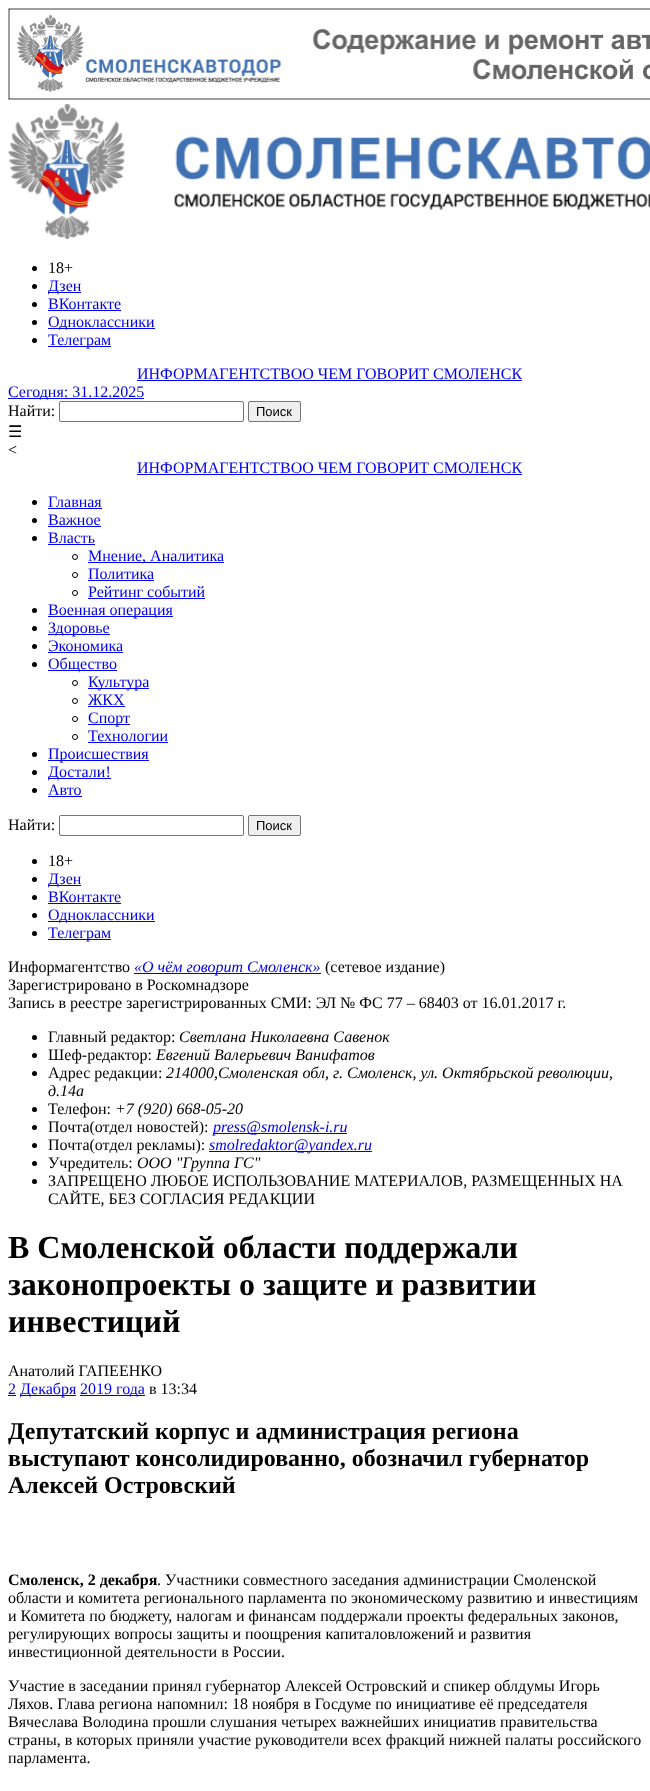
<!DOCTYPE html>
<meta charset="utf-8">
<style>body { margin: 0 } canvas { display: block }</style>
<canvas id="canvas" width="650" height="1791"></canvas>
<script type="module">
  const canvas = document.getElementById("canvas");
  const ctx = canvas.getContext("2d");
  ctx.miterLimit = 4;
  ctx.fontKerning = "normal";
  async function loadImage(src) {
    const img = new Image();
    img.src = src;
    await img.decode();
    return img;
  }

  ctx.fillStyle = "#ffffff";
  ctx.fillRect(0, 0, 650, 1791);
  ctx.drawImage(await loadImage("img1.png"), 8, 8, 642, 92);
  ctx.drawImage(await loadImage("img2.png"), 8, 104, 642, 135);
  ctx.fillStyle = "#000000";
  ctx.beginPath();
  ctx.arc(34.5, 268.5, 2.5, 0, Math.PI * 2);
  ctx.fill();
  ctx.font = "16px Liberation Serif";
  ctx.fillText("18+", 48, 273);
  ctx.beginPath();
  ctx.arc(34.5, 286.5, 2.5, 0, Math.PI * 2);
  ctx.fill();
  ctx.fillStyle = "#0000ee";
  ctx.fillRect(48, 292, 33, 1);
  ctx.fillText("Дзен", 48, 291);
  ctx.fillStyle = "#000000";
  ctx.beginPath();
  ctx.arc(34.5, 304.5, 2.5, 0, Math.PI * 2);
  ctx.fill();
  ctx.fillStyle = "#0000ee";
  ctx.fillText("ВКонтакте", 48, 309);
  ctx.fillRect(48, 310, 73, 1);
  ctx.fillStyle = "#000000";
  ctx.beginPath();
  ctx.arc(34.5, 322.5, 2.5, 0, Math.PI * 2);
  ctx.fill();
  ctx.fillStyle = "#0000ee";
  ctx.fillRect(48, 328, 107, 1);
  ctx.fillText("Одноклассники", 48, 327);
  ctx.fillStyle = "#000000";
  ctx.beginPath();
  ctx.arc(34.5, 340.5, 2.5, 0, Math.PI * 2);
  ctx.fill();
  ctx.fillStyle = "#0000ee";
  ctx.fillRect(48, 346, 63, 1);
  ctx.fillText("Телеграм", 48, 345);
  ctx.fillText("ИНФОРМАГЕНТСТВОО ЧЕМ ГОВОРИТ СМОЛЕНСК", 137, 379);
  ctx.fillRect(137, 380, 385, 1);
  ctx.fillRect(8, 398, 136, 1);
  ctx.fillText("Сегодня: 31.12.2025", 8, 397);
  ctx.fillStyle = "#000000";
  ctx.fillText("Найти:", 8, 416);
  ctx.beginPath();
  ctx.roundRect(59.5, 401.5, 184, 20, 1.5);
  ctx.strokeStyle = "#767676";
  ctx.stroke();
  ctx.fillStyle = "#efefef";
  ctx.beginPath();
  ctx.roundRect(248.5, 401.5, 52, 20, 1.5);
  ctx.fill();
  ctx.stroke();
  ctx.font = "13px Liberation Sans";
  ctx.fillStyle = "#000000";
  ctx.fillText("Поиск", 256, 416);
  ctx.font = "16px DejaVu Sans";
  ctx.fillText("☰", 8, 437);
  ctx.font = "16px Liberation Serif";
  ctx.fillText("<", 8, 455);
  ctx.fillStyle = "#0000ee";
  ctx.fillText("ИНФОРМАГЕНТСТВОО ЧЕМ ГОВОРИТ СМОЛЕНСК", 137, 473);
  ctx.fillRect(137, 474, 385, 1);
  ctx.fillStyle = "#000000";
  ctx.beginPath();
  ctx.arc(34.5, 502.5, 2.5, 0, Math.PI * 2);
  ctx.fill();
  ctx.fillStyle = "#0000ee";
  ctx.fillText("Главная", 48, 507);
  ctx.fillRect(48, 508, 54, 1);
  ctx.fillStyle = "#000000";
  ctx.beginPath();
  ctx.arc(34.5, 520.5, 2.5, 0, Math.PI * 2);
  ctx.fill();
  ctx.fillStyle = "#0000ee";
  ctx.fillText("Важное", 48, 525);
  ctx.fillRect(48, 526, 53, 1);
  ctx.fillStyle = "#000000";
  ctx.beginPath();
  ctx.arc(34.5, 538.5, 2.5, 0, Math.PI * 2);
  ctx.fill();
  ctx.fillStyle = "#0000ee";
  ctx.fillText("Власть", 48, 543);
  ctx.fillRect(48, 544, 47, 1);
  ctx.beginPath();
  ctx.arc(75, 557, 2.5, 0, Math.PI * 2);
  ctx.strokeStyle = "#000000";
  ctx.stroke();
  ctx.fillRect(88, 562, 136, 1);
  ctx.fillText("Мнение, Аналитика", 88, 561);
  ctx.beginPath();
  ctx.arc(75, 575, 2.5, 0, Math.PI * 2);
  ctx.stroke();
  ctx.fillText("Политика", 88, 579);
  ctx.fillRect(88, 580, 66, 1);
  ctx.beginPath();
  ctx.arc(75, 593, 2.5, 0, Math.PI * 2);
  ctx.stroke();
  ctx.fillText("Рейтинг событий", 88, 597);
  ctx.fillRect(88, 598, 117, 1);
  ctx.fillStyle = "#000000";
  ctx.beginPath();
  ctx.arc(34.5, 610.5, 2.5, 0, Math.PI * 2);
  ctx.fill();
  ctx.fillStyle = "#0000ee";
  ctx.fillRect(48, 616, 125, 1);
  ctx.fillText("Военная операция", 48, 615);
  ctx.fillStyle = "#000000";
  ctx.beginPath();
  ctx.arc(34.5, 628.5, 2.5, 0, Math.PI * 2);
  ctx.fill();
  ctx.fillStyle = "#0000ee";
  ctx.fillRect(48, 634, 62, 1);
  ctx.fillText("Здоровье", 48, 633);
  ctx.fillStyle = "#000000";
  ctx.beginPath();
  ctx.arc(34.5, 646.5, 2.5, 0, Math.PI * 2);
  ctx.fill();
  ctx.fillStyle = "#0000ee";
  ctx.fillText("Экономика", 48, 651);
  ctx.fillRect(48, 652, 75, 1);
  ctx.fillStyle = "#000000";
  ctx.beginPath();
  ctx.arc(34.5, 664.5, 2.5, 0, Math.PI * 2);
  ctx.fill();
  ctx.fillStyle = "#0000ee";
  ctx.fillRect(48, 670, 69, 1);
  ctx.fillText("Общество", 48, 669);
  ctx.beginPath();
  ctx.arc(75, 683, 2.5, 0, Math.PI * 2);
  ctx.stroke();
  ctx.fillRect(88, 688, 61, 1);
  ctx.fillText("Культура", 88, 687);
  ctx.beginPath();
  ctx.arc(75, 701, 2.5, 0, Math.PI * 2);
  ctx.stroke();
  ctx.fillText("ЖКХ", 88, 705);
  ctx.fillRect(88, 706, 37, 1);
  ctx.beginPath();
  ctx.arc(75, 719, 2.5, 0, Math.PI * 2);
  ctx.stroke();
  ctx.fillRect(88, 724, 42, 1);
  ctx.fillText("Спорт", 88, 723);
  ctx.beginPath();
  ctx.arc(75, 737, 2.5, 0, Math.PI * 2);
  ctx.stroke();
  ctx.fillText("Технологии", 88, 741);
  ctx.fillRect(88, 742, 80, 1);
  ctx.fillStyle = "#000000";
  ctx.beginPath();
  ctx.arc(34.5, 754.5, 2.5, 0, Math.PI * 2);
  ctx.fill();
  ctx.fillStyle = "#0000ee";
  ctx.fillRect(48, 760, 101, 1);
  ctx.fillText("Происшествия", 48, 759);
  ctx.fillStyle = "#000000";
  ctx.beginPath();
  ctx.arc(34.5, 772.5, 2.5, 0, Math.PI * 2);
  ctx.fill();
  ctx.fillStyle = "#0000ee";
  ctx.fillRect(48, 778, 63, 1);
  ctx.fillText("Достали!", 48, 777);
  ctx.fillStyle = "#000000";
  ctx.beginPath();
  ctx.arc(34.5, 790.5, 2.5, 0, Math.PI * 2);
  ctx.fill();
  ctx.fillStyle = "#0000ee";
  ctx.fillText("Авто", 48, 795);
  ctx.fillRect(48, 796, 34, 1);
  ctx.fillStyle = "#000000";
  ctx.fillText("Найти:", 8, 830);
  ctx.beginPath();
  ctx.roundRect(59.5, 815.5, 184, 20, 1.5);
  ctx.strokeStyle = "#767676";
  ctx.stroke();
  ctx.fillStyle = "#efefef";
  ctx.beginPath();
  ctx.roundRect(248.5, 815.5, 52, 20, 1.5);
  ctx.fill();
  ctx.stroke();
  ctx.font = "13px Liberation Sans";
  ctx.fillStyle = "#000000";
  ctx.fillText("Поиск", 256, 830);
  ctx.beginPath();
  ctx.arc(34.5, 861.5, 2.5, 0, Math.PI * 2);
  ctx.fill();
  ctx.font = "16px Liberation Serif";
  ctx.fillText("18+", 48, 866);
  ctx.beginPath();
  ctx.arc(34.5, 879.5, 2.5, 0, Math.PI * 2);
  ctx.fill();
  ctx.fillStyle = "#0000ee";
  ctx.fillRect(48, 885, 33, 1);
  ctx.fillText("Дзен", 48, 884);
  ctx.fillStyle = "#000000";
  ctx.beginPath();
  ctx.arc(34.5, 897.5, 2.5, 0, Math.PI * 2);
  ctx.fill();
  ctx.fillStyle = "#0000ee";
  ctx.fillText("ВКонтакте", 48, 902);
  ctx.fillRect(48, 903, 73, 1);
  ctx.fillStyle = "#000000";
  ctx.beginPath();
  ctx.arc(34.5, 915.5, 2.5, 0, Math.PI * 2);
  ctx.fill();
  ctx.fillStyle = "#0000ee";
  ctx.fillRect(48, 921, 107, 1);
  ctx.fillText("Одноклассники", 48, 920);
  ctx.fillStyle = "#000000";
  ctx.beginPath();
  ctx.arc(34.5, 933.5, 2.5, 0, Math.PI * 2);
  ctx.fill();
  ctx.fillStyle = "#0000ee";
  ctx.fillRect(48, 939, 63, 1);
  ctx.fillText("Телеграм", 48, 938);
  ctx.fillStyle = "#000000";
  ctx.fillText("Информагентство", 8, 972);
  ctx.fillStyle = "#0000ee";
  ctx.fillRect(134, 973, 187, 1);
  ctx.font = "italic 16px Liberation Serif";
  ctx.fillText("«О чём говорит Смоленск»", 134, 972);
  ctx.font = "16px Liberation Serif";
  ctx.fillStyle = "#000000";
  ctx.fillText("(сетевое издание)", 325, 972);
  ctx.fillText("Зарегистрировано в Роскомнадзоре", 8, 990);
  ctx.fillText("Запись в реестре зарегистрированных СМИ: ЭЛ № ФС 77 – 68403 от 16.01.2017 г.", 8, 1008);
  ctx.beginPath();
  ctx.arc(34.5, 1037.5, 2.5, 0, Math.PI * 2);
  ctx.fill();
  ctx.fillText("Главный редактор:", 48, 1042);
  ctx.font = "italic 16px Liberation Serif";
  ctx.fillText("Светлана Николаевна Савенок", 179, 1042);
  ctx.beginPath();
  ctx.arc(34.5, 1055.5, 2.5, 0, Math.PI * 2);
  ctx.fill();
  ctx.font = "16px Liberation Serif";
  ctx.fillText("Шеф-редактор:", 48, 1060);
  ctx.font = "italic 16px Liberation Serif";
  ctx.fillText("Евгений Валерьевич Ванифатов", 156, 1060);
  ctx.beginPath();
  ctx.arc(34.5, 1073.5, 2.5, 0, Math.PI * 2);
  ctx.fill();
  ctx.font = "16px Liberation Serif";
  ctx.fillText("Адрес редакции:", 48, 1078);
  ctx.font = "italic 16px Liberation Serif";
  ctx.fillText("214000,Смоленская обл, г. Смоленск, ул. Октябрьской революции,", 166, 1078);
  ctx.fillText("д.14а", 48, 1096);
  ctx.beginPath();
  ctx.arc(34.5, 1109.5, 2.5, 0, Math.PI * 2);
  ctx.fill();
  ctx.font = "16px Liberation Serif";
  ctx.fillText("Телефон:", 48, 1114);
  ctx.font = "italic 16px Liberation Serif";
  ctx.fillText("+7 (920) 668-05-20", 115, 1114);
  ctx.beginPath();
  ctx.arc(34.5, 1127.5, 2.5, 0, Math.PI * 2);
  ctx.fill();
  ctx.font = "16px Liberation Serif";
  ctx.fillText("Почта(отдел новостей):", 48, 1132);
  ctx.fillStyle = "#0000ee";
  ctx.fillRect(213, 1133, 134, 1);
  ctx.font = "italic 16px Liberation Serif";
  ctx.fillText("press@smolensk-i.ru", 213, 1132);
  ctx.fillStyle = "#000000";
  ctx.beginPath();
  ctx.arc(34.5, 1145.5, 2.5, 0, Math.PI * 2);
  ctx.fill();
  ctx.font = "16px Liberation Serif";
  ctx.fillText("Почта(отдел рекламы):", 48, 1150);
  ctx.fillStyle = "#0000ee";
  ctx.fillRect(209, 1151, 163, 1);
  ctx.font = "italic 16px Liberation Serif";
  ctx.fillText("smolredaktor@yandex.ru", 209, 1150);
  ctx.fillStyle = "#000000";
  ctx.beginPath();
  ctx.arc(34.5, 1163.5, 2.5, 0, Math.PI * 2);
  ctx.fill();
  ctx.font = "16px Liberation Serif";
  ctx.fillText("Учредитель:", 48, 1168);
  ctx.font = "italic 16px Liberation Serif";
  ctx.fillText("ООО \"Группа ГС\"", 137, 1168);
  ctx.beginPath();
  ctx.arc(34.5, 1181.5, 2.5, 0, Math.PI * 2);
  ctx.fill();
  ctx.font = "16px Liberation Serif";
  ctx.fillText("ЗАПРЕЩЕНО ЛЮБОЕ ИСПОЛЬЗОВАНИЕ МАТЕРИАЛОВ, РАЗМЕЩЕННЫХ НА", 48, 1186);
  ctx.fillText("САЙТЕ, БЕЗ СОГЛАСИЯ РЕДАКЦИИ", 48, 1204);
  ctx.font = "bold 32px Liberation Serif";
  ctx.fillText("В Смоленской области поддержали", 8, 1258);
  ctx.fillText("законопроекты о защите и развитии", 8, 1295);
  ctx.fillText("инвестиций", 8, 1332);
  ctx.font = "16px Liberation Serif";
  ctx.fillText("Анатолий ГАПЕЕНКО", 8, 1376);
  ctx.fillStyle = "#0000ee";
  ctx.fillText("2", 8, 1394);
  ctx.fillRect(8, 1395, 8, 1);
  ctx.fillRect(20, 1395, 56, 1);
  ctx.fillText("Декабря", 20, 1394);
  ctx.fillRect(80, 1395, 65, 1);
  ctx.fillText("2019 года", 80, 1394);
  ctx.fillStyle = "#000000";
  ctx.fillText("в 13:34", 149, 1394);
  ctx.font = "bold 24px Liberation Serif";
  ctx.fillText("Депутатский корпус и администрация региона", 8, 1439);
  ctx.fillText("выступают консолидированно, обозначил губернатор", 8, 1466);
  ctx.fillText("Алексей Островский", 8, 1493);
  ctx.font = "bold 16px Liberation Serif";
  ctx.fillText("Смоленск, 2 декабря", 8, 1585);
  ctx.font = "16px Liberation Serif";
  ctx.fillText(". Участники совместного заседания администрации Смоленской", 157, 1585);
  ctx.fillText("области и комитета регионального парламента по экономическому развитию и инвестициям", 8, 1603);
  ctx.fillText("и Комитета по бюджету, налогам и финансам поддержали проекты федеральных законов,", 8, 1621);
  ctx.fillText("регулирующих вопросы защиты и поощрения капиталовложений и развития", 8, 1639);
  ctx.fillText("инвестиционной деятельности в России.", 8, 1657);
  ctx.fillText("Участие в заседании принял губернатор Алексей Островский и спикер облдумы Игорь", 8, 1691);
  ctx.fillText("Ляхов. Глава региона напомнил: 18 ноября в Госдуме по инициативе её председателя", 8, 1709);
  ctx.fillText("Вячеслава Володина прошли слушания четырех важнейших инициатив правительства", 8, 1727);
  ctx.fillText("страны, в которых приняли участие руководители всех фракций нижней палаты российского", 8, 1745);
  ctx.fillText("парламента.", 8, 1763);
</script>
